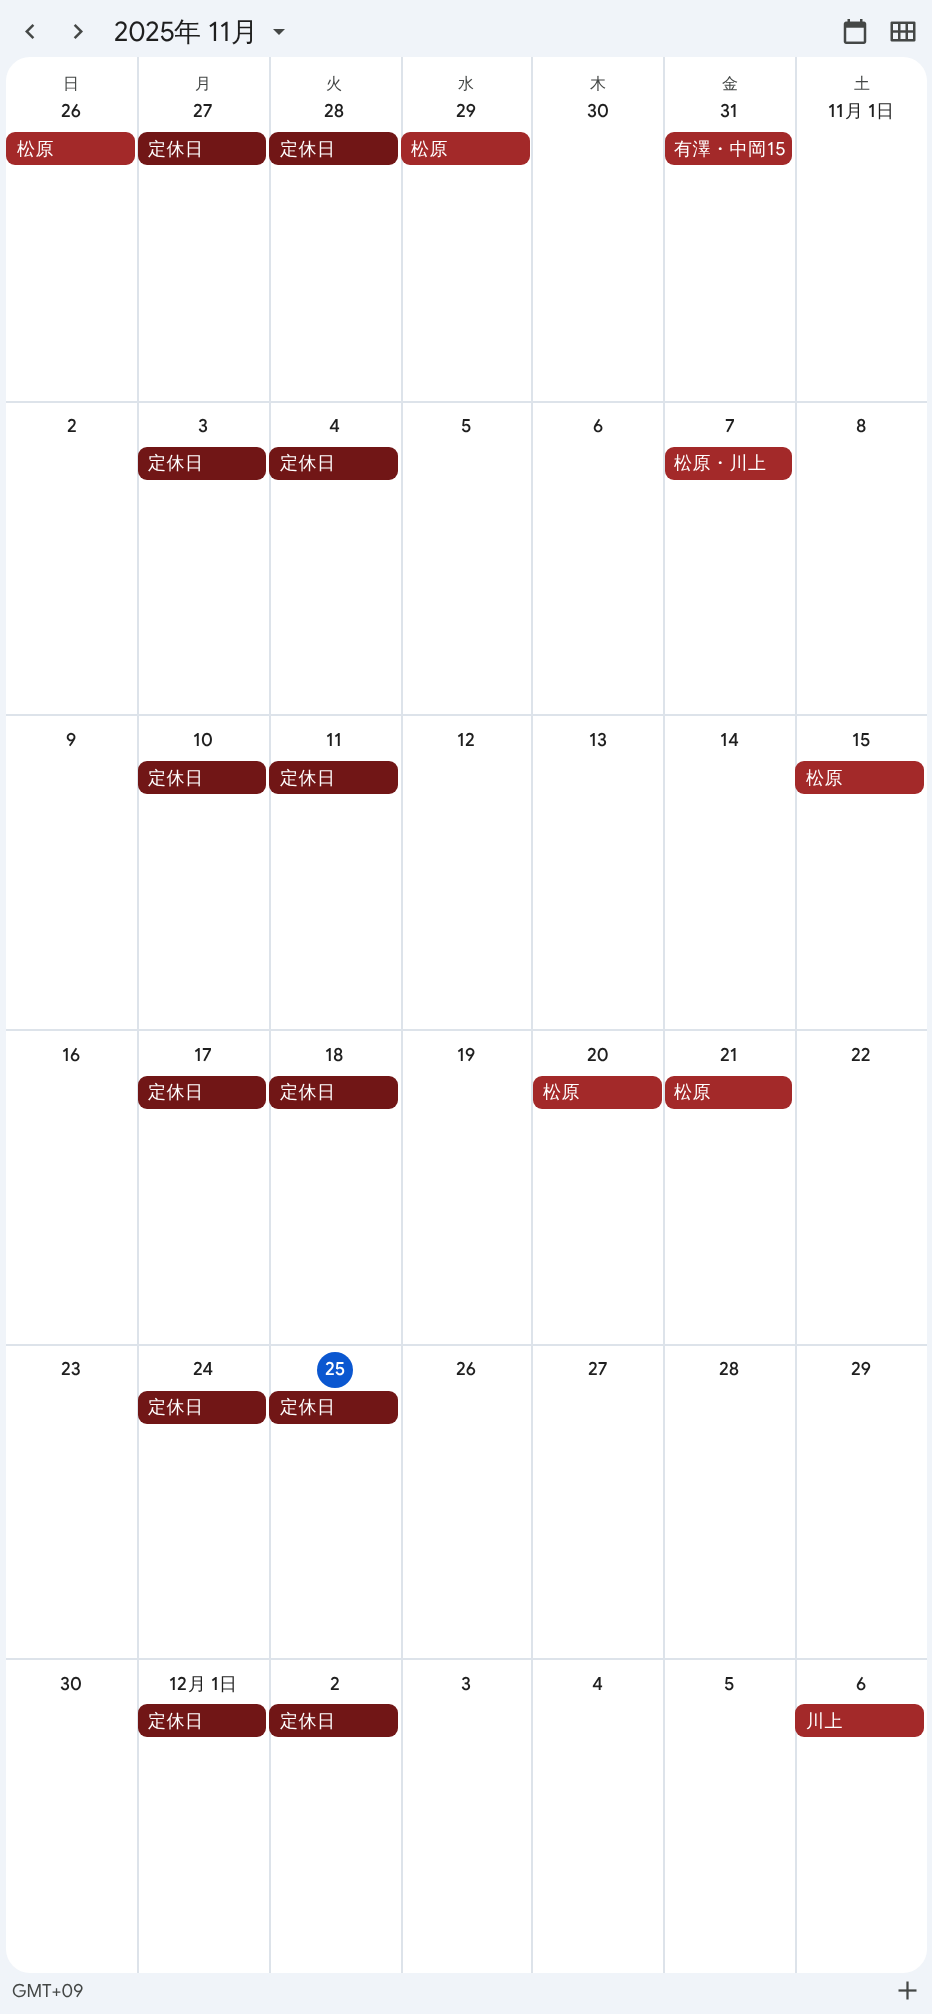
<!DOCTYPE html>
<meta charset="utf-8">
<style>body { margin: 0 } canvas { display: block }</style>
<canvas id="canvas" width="932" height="2014"></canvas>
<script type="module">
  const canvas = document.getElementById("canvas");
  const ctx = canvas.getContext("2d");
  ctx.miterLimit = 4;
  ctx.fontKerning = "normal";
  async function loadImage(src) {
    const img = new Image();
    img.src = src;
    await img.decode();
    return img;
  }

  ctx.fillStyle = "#f0f4f9";
  ctx.fillRect(0, 0, 932, 2014);
  ctx.drawImage(await loadImage("img1.png"), 25, 24, 10, 15);
  ctx.drawImage(await loadImage("img2.png"), 73, 24, 10, 15);
  ctx.font = "27px Google Sans";
  ctx.fillStyle = "#1f1f1f";
  ctx.fillText("2025", 114, 41);
  ctx.font = "500 27px WenQuanYi Zen Hei";
  ctx.fillText("年", 174, 41);
  ctx.font = "27px Google Sans";
  ctx.fillText("11", 208, 41);
  ctx.font = "500 27px WenQuanYi Zen Hei";
  ctx.fillText("月", 231, 41);
  ctx.fillStyle = "#444746";
  ctx.beginPath();
  ctx.moveTo(273, 29);
  ctx.lineTo(279, 35);
  ctx.lineTo(285, 29);
  ctx.closePath();
  ctx.fill();
  ctx.drawImage(await loadImage("img3.png"), 843, 19, 24, 25);
  ctx.drawImage(await loadImage("img4.png"), 890, 21, 26, 21);
  ctx.fillStyle = "#ffffff";
  ctx.beginPath();
  ctx.roundRect(6, 57, 921, 1916, 24);
  ctx.fill();
  ctx.fillStyle = "#dde3ea";
  ctx.fillRect(137, 57, 2, 344);
  ctx.font = "500 16px WenQuanYi Zen Hei";
  ctx.fillStyle = "#444746";
  ctx.fillText("日", 63, 89);
  ctx.fillStyle = "#dde3ea";
  ctx.fillRect(269, 57, 2, 344);
  ctx.fillStyle = "#444746";
  ctx.fillText("月", 195, 89);
  ctx.fillStyle = "#dde3ea";
  ctx.fillRect(401, 57, 2, 344);
  ctx.fillStyle = "#444746";
  ctx.fillText("火", 326, 89);
  ctx.fillStyle = "#dde3ea";
  ctx.fillRect(531, 57, 2, 344);
  ctx.fillStyle = "#444746";
  ctx.fillText("水", 458, 89);
  ctx.fillStyle = "#dde3ea";
  ctx.fillRect(663, 57, 2, 344);
  ctx.fillStyle = "#444746";
  ctx.fillText("木", 590, 89);
  ctx.fillStyle = "#dde3ea";
  ctx.fillRect(795, 57, 2, 344);
  ctx.fillStyle = "#444746";
  ctx.fillText("金", 722, 89);
  ctx.fillText("土", 854, 89);
  ctx.fillStyle = "#dde3ea";
  ctx.fillRect(6, 401, 921, 2);
  ctx.font = "500 18px Google Sans";
  ctx.fillStyle = "#1f1f1f";
  ctx.fillText("26", 61, 117);
  ctx.fillText("27", 193, 117);
  ctx.fillText("28", 324, 117);
  ctx.fillText("29", 456, 117);
  ctx.fillText("30", 587, 117);
  ctx.fillText("31", 720, 117);
  ctx.fillText("11", 828, 117);
  ctx.font = "500 18px WenQuanYi Zen Hei";
  ctx.fillText("月", 845, 117);
  ctx.font = "500 18px Google Sans";
  ctx.fillText("1", 868, 117);
  ctx.font = "500 18px WenQuanYi Zen Hei";
  ctx.fillText("日", 876, 117);
  ctx.fillStyle = "#a32929";
  ctx.beginPath();
  ctx.roundRect(6, 132, 129, 33, 9);
  ctx.fill();
  ctx.letterSpacing = "0.5px";
  ctx.fillStyle = "#ffffff";
  ctx.fillText("松原", 17, 155);
  ctx.fillStyle = "#711616";
  ctx.beginPath();
  ctx.roundRect(138, 132, 128, 33, 9);
  ctx.fill();
  ctx.fillStyle = "#ffffff";
  ctx.fillText("定休日", 148, 155);
  ctx.fillStyle = "#711616";
  ctx.beginPath();
  ctx.roundRect(269, 132, 129, 33, 9);
  ctx.fill();
  ctx.fillStyle = "#ffffff";
  ctx.fillText("定休日", 280, 155);
  ctx.fillStyle = "#a32929";
  ctx.beginPath();
  ctx.roundRect(401, 132, 129, 33, 9);
  ctx.fill();
  ctx.fillStyle = "#ffffff";
  ctx.fillText("松原", 411, 155);
  ctx.fillStyle = "#a32929";
  ctx.beginPath();
  ctx.roundRect(665, 132, 127, 33, 9);
  ctx.fill();
  ctx.fillStyle = "#ffffff";
  ctx.fillText("有澤・中岡", 674, 155);
  ctx.font = "18px Google Sans";
  ctx.fillText("15", 767, 155);
  ctx.fillStyle = "#dde3ea";
  ctx.fillRect(6, 714, 921, 2);
  ctx.fillRect(137, 402, 2, 312);
  ctx.fillRect(269, 402, 2, 312);
  ctx.fillRect(401, 402, 2, 312);
  ctx.fillRect(531, 402, 2, 312);
  ctx.fillRect(663, 402, 2, 312);
  ctx.fillRect(795, 402, 2, 312);
  ctx.letterSpacing = "0px";
  ctx.font = "500 18px Google Sans";
  ctx.fillStyle = "#1f1f1f";
  ctx.fillText("2", 67, 432);
  ctx.fillText("3", 198, 432);
  ctx.fillText("4", 329, 432);
  ctx.fillText("5", 461, 432);
  ctx.fillText("6", 593, 432);
  ctx.fillText("7", 725, 432);
  ctx.fillText("8", 856, 432);
  ctx.fillStyle = "#711616";
  ctx.beginPath();
  ctx.roundRect(138, 447, 128, 33, 9);
  ctx.fill();
  ctx.letterSpacing = "0.5px";
  ctx.font = "500 18px WenQuanYi Zen Hei";
  ctx.fillStyle = "#ffffff";
  ctx.fillText("定休日", 148, 469);
  ctx.fillStyle = "#711616";
  ctx.beginPath();
  ctx.roundRect(269, 447, 129, 33, 9);
  ctx.fill();
  ctx.fillStyle = "#ffffff";
  ctx.fillText("定休日", 280, 469);
  ctx.fillStyle = "#a32929";
  ctx.beginPath();
  ctx.roundRect(665, 447, 127, 33, 9);
  ctx.fill();
  ctx.fillStyle = "#ffffff";
  ctx.fillText("松原・川上", 674, 469);
  ctx.fillStyle = "#dde3ea";
  ctx.fillRect(6, 1029, 921, 2);
  ctx.fillRect(137, 716, 2, 313);
  ctx.fillRect(269, 716, 2, 313);
  ctx.fillRect(401, 716, 2, 313);
  ctx.fillRect(531, 716, 2, 313);
  ctx.fillRect(663, 716, 2, 313);
  ctx.fillRect(795, 716, 2, 313);
  ctx.letterSpacing = "0px";
  ctx.font = "500 18px Google Sans";
  ctx.fillStyle = "#1f1f1f";
  ctx.fillText("9", 66, 746);
  ctx.fillText("10", 193, 746);
  ctx.fillText("11", 326, 746);
  ctx.fillText("12", 457, 746);
  ctx.fillText("13", 589, 746);
  ctx.fillText("14", 720, 746);
  ctx.fillText("15", 852, 746);
  ctx.fillStyle = "#711616";
  ctx.beginPath();
  ctx.roundRect(138, 761, 128, 33, 9);
  ctx.fill();
  ctx.letterSpacing = "0.5px";
  ctx.font = "500 18px WenQuanYi Zen Hei";
  ctx.fillStyle = "#ffffff";
  ctx.fillText("定休日", 148, 784);
  ctx.fillStyle = "#711616";
  ctx.beginPath();
  ctx.roundRect(269, 761, 129, 33, 9);
  ctx.fill();
  ctx.fillStyle = "#ffffff";
  ctx.fillText("定休日", 280, 784);
  ctx.fillStyle = "#a32929";
  ctx.beginPath();
  ctx.roundRect(795, 761, 129, 33, 9);
  ctx.fill();
  ctx.fillStyle = "#ffffff";
  ctx.fillText("松原", 806, 784);
  ctx.fillStyle = "#dde3ea";
  ctx.fillRect(6, 1344, 921, 2);
  ctx.fillRect(137, 1031, 2, 313);
  ctx.fillRect(269, 1031, 2, 313);
  ctx.fillRect(401, 1031, 2, 313);
  ctx.fillRect(531, 1031, 2, 313);
  ctx.fillRect(663, 1031, 2, 313);
  ctx.fillRect(795, 1031, 2, 313);
  ctx.letterSpacing = "0px";
  ctx.font = "500 18px Google Sans";
  ctx.fillStyle = "#1f1f1f";
  ctx.fillText("16", 62, 1061);
  ctx.fillText("17", 194, 1061);
  ctx.fillText("18", 325, 1061);
  ctx.fillText("19", 457, 1061);
  ctx.fillText("20", 587, 1061);
  ctx.fillText("21", 720, 1061);
  ctx.fillText("22", 851, 1061);
  ctx.fillStyle = "#711616";
  ctx.beginPath();
  ctx.roundRect(138, 1076, 128, 33, 9);
  ctx.fill();
  ctx.letterSpacing = "0.5px";
  ctx.font = "500 18px WenQuanYi Zen Hei";
  ctx.fillStyle = "#ffffff";
  ctx.fillText("定休日", 148, 1098);
  ctx.fillStyle = "#711616";
  ctx.beginPath();
  ctx.roundRect(269, 1076, 129, 33, 9);
  ctx.fill();
  ctx.fillStyle = "#ffffff";
  ctx.fillText("定休日", 280, 1098);
  ctx.fillStyle = "#a32929";
  ctx.beginPath();
  ctx.roundRect(533, 1076, 129, 33, 9);
  ctx.fill();
  ctx.fillStyle = "#ffffff";
  ctx.fillText("松原", 543, 1098);
  ctx.fillStyle = "#a32929";
  ctx.beginPath();
  ctx.roundRect(665, 1076, 127, 33, 9);
  ctx.fill();
  ctx.fillStyle = "#ffffff";
  ctx.fillText("松原", 674, 1098);
  ctx.fillStyle = "#dde3ea";
  ctx.fillRect(6, 1658, 921, 2);
  ctx.fillRect(137, 1346, 2, 312);
  ctx.fillRect(269, 1346, 2, 312);
  ctx.fillRect(401, 1346, 2, 312);
  ctx.fillRect(531, 1346, 2, 312);
  ctx.fillRect(663, 1346, 2, 312);
  ctx.fillRect(795, 1346, 2, 312);
  ctx.letterSpacing = "0px";
  ctx.font = "500 18px Google Sans";
  ctx.fillStyle = "#1f1f1f";
  ctx.fillText("23", 61, 1375);
  ctx.fillText("24", 193, 1375);
  ctx.fillStyle = "#0b57d0";
  ctx.beginPath();
  ctx.arc(335, 1370, 18, 0, Math.PI * 2);
  ctx.fill();
  ctx.fillStyle = "#ffffff";
  ctx.fillText("25", 325, 1375);
  ctx.fillStyle = "#1f1f1f";
  ctx.fillText("26", 456, 1375);
  ctx.fillText("27", 588, 1375);
  ctx.fillText("28", 719, 1375);
  ctx.fillText("29", 851, 1375);
  ctx.fillStyle = "#711616";
  ctx.beginPath();
  ctx.roundRect(138, 1391, 128, 33, 9);
  ctx.fill();
  ctx.letterSpacing = "0.5px";
  ctx.font = "500 18px WenQuanYi Zen Hei";
  ctx.fillStyle = "#ffffff";
  ctx.fillText("定休日", 148, 1413);
  ctx.fillStyle = "#711616";
  ctx.beginPath();
  ctx.roundRect(269, 1391, 129, 33, 9);
  ctx.fill();
  ctx.fillStyle = "#ffffff";
  ctx.fillText("定休日", 280, 1413);
  ctx.fillStyle = "#dde3ea";
  ctx.fillRect(137, 1659, 2, 314);
  ctx.fillRect(269, 1659, 2, 314);
  ctx.fillRect(401, 1659, 2, 314);
  ctx.fillRect(531, 1659, 2, 314);
  ctx.fillRect(663, 1659, 2, 314);
  ctx.fillRect(795, 1659, 2, 314);
  ctx.letterSpacing = "0px";
  ctx.font = "500 18px Google Sans";
  ctx.fillStyle = "#1f1f1f";
  ctx.fillText("30", 60, 1690);
  ctx.fillText("12", 169, 1690);
  ctx.font = "500 18px WenQuanYi Zen Hei";
  ctx.fillText("月", 188, 1690);
  ctx.font = "500 18px Google Sans";
  ctx.fillText("1", 211, 1690);
  ctx.font = "500 18px WenQuanYi Zen Hei";
  ctx.fillText("日", 219, 1690);
  ctx.font = "500 18px Google Sans";
  ctx.fillText("2", 330, 1690);
  ctx.fillText("3", 461, 1690);
  ctx.fillText("4", 592, 1690);
  ctx.fillText("5", 724, 1690);
  ctx.fillText("6", 856, 1690);
  ctx.fillStyle = "#711616";
  ctx.beginPath();
  ctx.roundRect(138, 1704, 128, 33, 9);
  ctx.fill();
  ctx.letterSpacing = "0.5px";
  ctx.font = "500 18px WenQuanYi Zen Hei";
  ctx.fillStyle = "#ffffff";
  ctx.fillText("定休日", 148, 1727);
  ctx.fillStyle = "#711616";
  ctx.beginPath();
  ctx.roundRect(269, 1704, 129, 33, 9);
  ctx.fill();
  ctx.fillStyle = "#ffffff";
  ctx.fillText("定休日", 280, 1727);
  ctx.fillStyle = "#a32929";
  ctx.beginPath();
  ctx.roundRect(795, 1704, 129, 33, 9);
  ctx.fill();
  ctx.fillStyle = "#ffffff";
  ctx.fillText("川上", 806, 1727);
  ctx.letterSpacing = "0px";
  ctx.font = "18px Google Sans";
  ctx.fillStyle = "#444746";
  ctx.fillText("GMT+09", 12, 1997);
  ctx.drawImage(await loadImage("img5.png"), 898, 1981, 19, 19);
</script>
